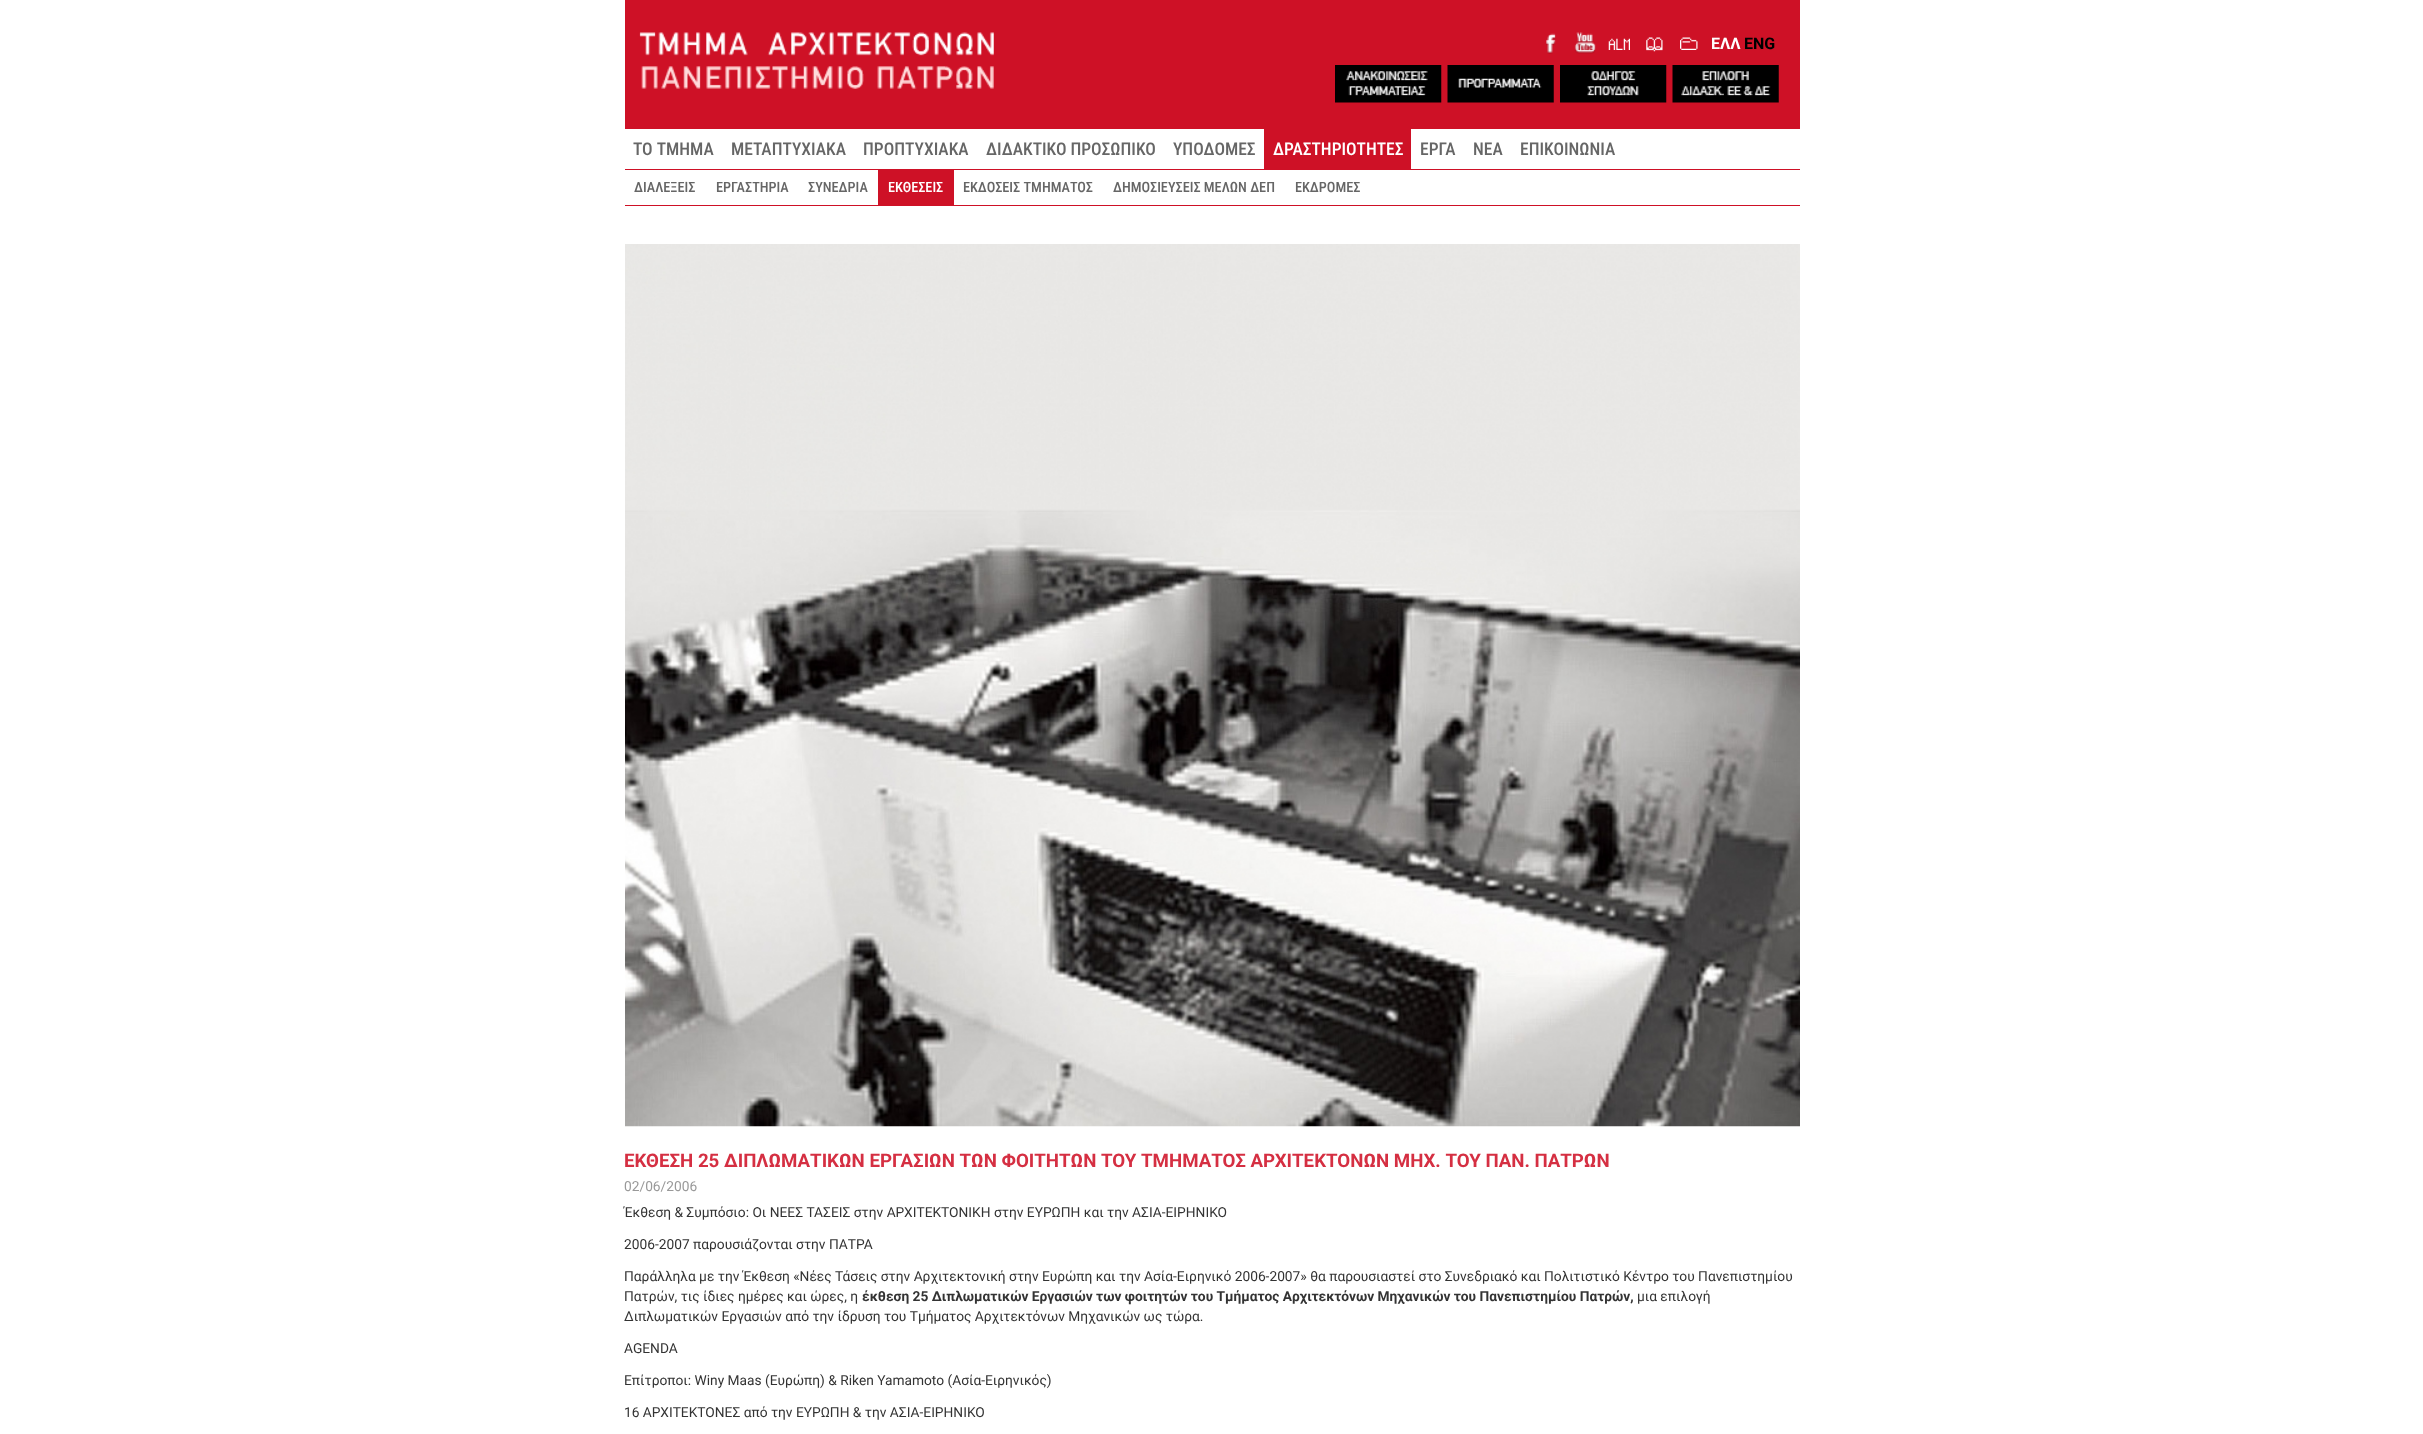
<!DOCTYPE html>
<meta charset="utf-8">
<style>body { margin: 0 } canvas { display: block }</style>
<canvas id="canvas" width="2423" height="1434"></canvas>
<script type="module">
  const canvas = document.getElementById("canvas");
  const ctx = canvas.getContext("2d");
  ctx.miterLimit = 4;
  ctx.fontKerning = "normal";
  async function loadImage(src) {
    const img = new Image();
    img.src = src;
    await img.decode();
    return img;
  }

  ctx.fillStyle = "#ffffff";
  ctx.fillRect(0, 0, 2423, 1434);
  ctx.fillStyle = "#ce1126";
  ctx.fillRect(625, 0, 1175, 129);
  ctx.drawImage(await loadImage("img1.png"), 639, 32, 355, 57);
  ctx.drawImage(await loadImage("img2.png"), 1546, 33, 10, 21);
  ctx.drawImage(await loadImage("img3.png"), 1574, 32, 22, 22);
  ctx.drawImage(await loadImage("img4.png"), 1608, 38, 22, 12);
  ctx.drawImage(await loadImage("img5.png"), 1646, 37, 17, 15);
  ctx.drawImage(await loadImage("img6.png"), 1680, 37, 18, 13);
  ctx.font = "bold 16px Roboto";
  ctx.fillStyle = "#ffffff";
  ctx.fillText("ΕΛΛ", 1711, 49);
  ctx.fillStyle = "#000000";
  ctx.fillText("ENG", 1744, 49);
  ctx.drawImage(await loadImage("img7.png"), 1335, 65, 107, 38);
  ctx.drawImage(await loadImage("img8.png"), 1447, 65, 107, 38);
  ctx.drawImage(await loadImage("img9.png"), 1560, 65, 107, 38);
  ctx.drawImage(await loadImage("img10.png"), 1672, 65, 107, 38);
  ctx.fillStyle = "#ce1126";
  ctx.fillRect(625, 169, 1175, 1);
  ctx.font = "500 17.5px Roboto Condensed";
  ctx.fillStyle = "#666666";
  ctx.fillText("ΤΟ ΤΜΗΜΑ", 633, 155);
  ctx.fillText("ΜΕΤΑΠΤΥΧΙΑΚΑ", 731, 155);
  ctx.fillText("ΠΡΟΠΤΥΧΙΑΚΑ", 863, 155);
  ctx.fillText("ΔΙΔΑΚΤΙΚΟ ΠΡΟΣΩΠΙΚΟ", 986, 155);
  ctx.fillText("ΥΠΟΔΟΜΕΣ", 1173, 155);
  ctx.fillStyle = "#ce1126";
  ctx.fillRect(1264, 129, 147, 40);
  ctx.fillStyle = "#ffffff";
  ctx.fillText("ΔΡΑΣΤΗΡΙΟΤΗΤΕΣ", 1273, 155);
  ctx.fillStyle = "#666666";
  ctx.fillText("ΕΡΓΑ", 1420, 155);
  ctx.fillText("ΝΕΑ", 1473, 155);
  ctx.fillText("ΕΠΙΚΟΙΝΩΝΙΑ", 1520, 155);
  ctx.fillStyle = "#ce1126";
  ctx.fillRect(625, 205, 1175, 1);
  ctx.font = "500 14.25px Roboto Condensed";
  ctx.fillStyle = "#666666";
  ctx.fillText("ΔΙΑΛΕΞΕΙΣ", 634, 192);
  ctx.fillText("ΕΡΓΑΣΤΗΡΙΑ", 716, 192);
  ctx.fillText("ΣΥΝΕΔΡΙΑ", 808, 192);
  ctx.fillStyle = "#ce1126";
  ctx.fillRect(878, 170, 76, 35);
  ctx.fillStyle = "#ffffff";
  ctx.fillText("ΕΚΘΕΣΕΙΣ", 888, 192);
  ctx.fillStyle = "#666666";
  ctx.fillText("ΕΚΔΟΣΕΙΣ ΤΜΗΜΑΤΟΣ", 963, 192);
  ctx.fillText("ΔΗΜΟΣΙΕΥΣΕΙΣ ΜΕΛΩΝ ΔΕΠ", 1113, 192);
  ctx.fillText("ΕΚΔΡΟΜΕΣ", 1295, 192);
  ctx.drawImage(await loadImage("img11.png"), 625, 244, 1175, 883);
  ctx.font = "bold 18.7px Roboto";
  ctx.fillStyle = "#d52f42";
  ctx.fillText("ΕΚΘΕΣΗ 25 ΔΙΠΛΩΜΑΤΙΚΩΝ ΕΡΓΑΣΙΩΝ ΤΩΝ ΦΟΙΤΗΤΩΝ ΤΟΥ ΤΜΗΜΑΤΟΣ ΑΡΧΙΤΕΚΤΟΝΩΝ ΜΗΧ. ΤΟΥ ΠΑΝ. ΠΑΤΡΩΝ", 624, 1167);
  ctx.font = "13.75px Roboto";
  ctx.fillStyle = "#999999";
  ctx.fillText("02/06/2006", 624, 1191);
  ctx.fillStyle = "#333333";
  ctx.fillText("Έκθεση & Συμπόσιο: Oι ΝΕΕΣ ΤΑΣΕΙΣ στην ΑΡΧΙΤΕΚΤΟΝΙΚΗ στην ΕΥΡΩΠΗ και την ΑΣΙΑ-ΕΙΡΗΝΙΚΟ", 624, 1217);
  ctx.fillText("2006-2007 παρουσιάζονται στην ΠΑΤΡΑ", 624, 1249);
  ctx.fillText("Παράλληλα με την Έκθεση «Νέες Τάσεις στην Αρχιτεκτονική στην Ευρώπη και την Ασία-Ειρηνικό 2006-2007» θα παρουσιαστεί στο Συνεδριακό και Πολιτιστικό Κέντρο του Πανεπιστημίου", 624, 1281);
  ctx.fillText("Πατρών, τις ίδιες ημέρες και ώρες, η", 624, 1301);
  ctx.font = "bold 13.75px Roboto";
  ctx.fillText("έκθεση 25 Διπλωματικών Εργασιών των φοιτητών του Τμήματος Αρχιτεκτόνων Μηχανικών του Πανεπιστημίου Πατρών,", 862, 1301);
  ctx.font = "13.75px Roboto";
  ctx.fillText("μια επιλογή", 1637, 1301);
  ctx.fillText("Διπλωματικών Εργασιών από την ίδρυση του Τμήματος Αρχιτεκτόνων Μηχανικών ως τώρα.", 624, 1321);
  ctx.fillText("AGENDA", 624, 1353);
  ctx.fillText("Επίτροποι: Winy Maas (Ευρώπη) & Riken Yamamoto (Ασία-Ειρηνικός)", 624, 1385);
  ctx.fillText("16 ΑΡΧΙΤΕΚΤΟΝΕΣ από την ΕΥΡΩΠΗ & την ΑΣΙΑ-ΕΙΡΗΝΙΚΟ", 624, 1417);
</script>
